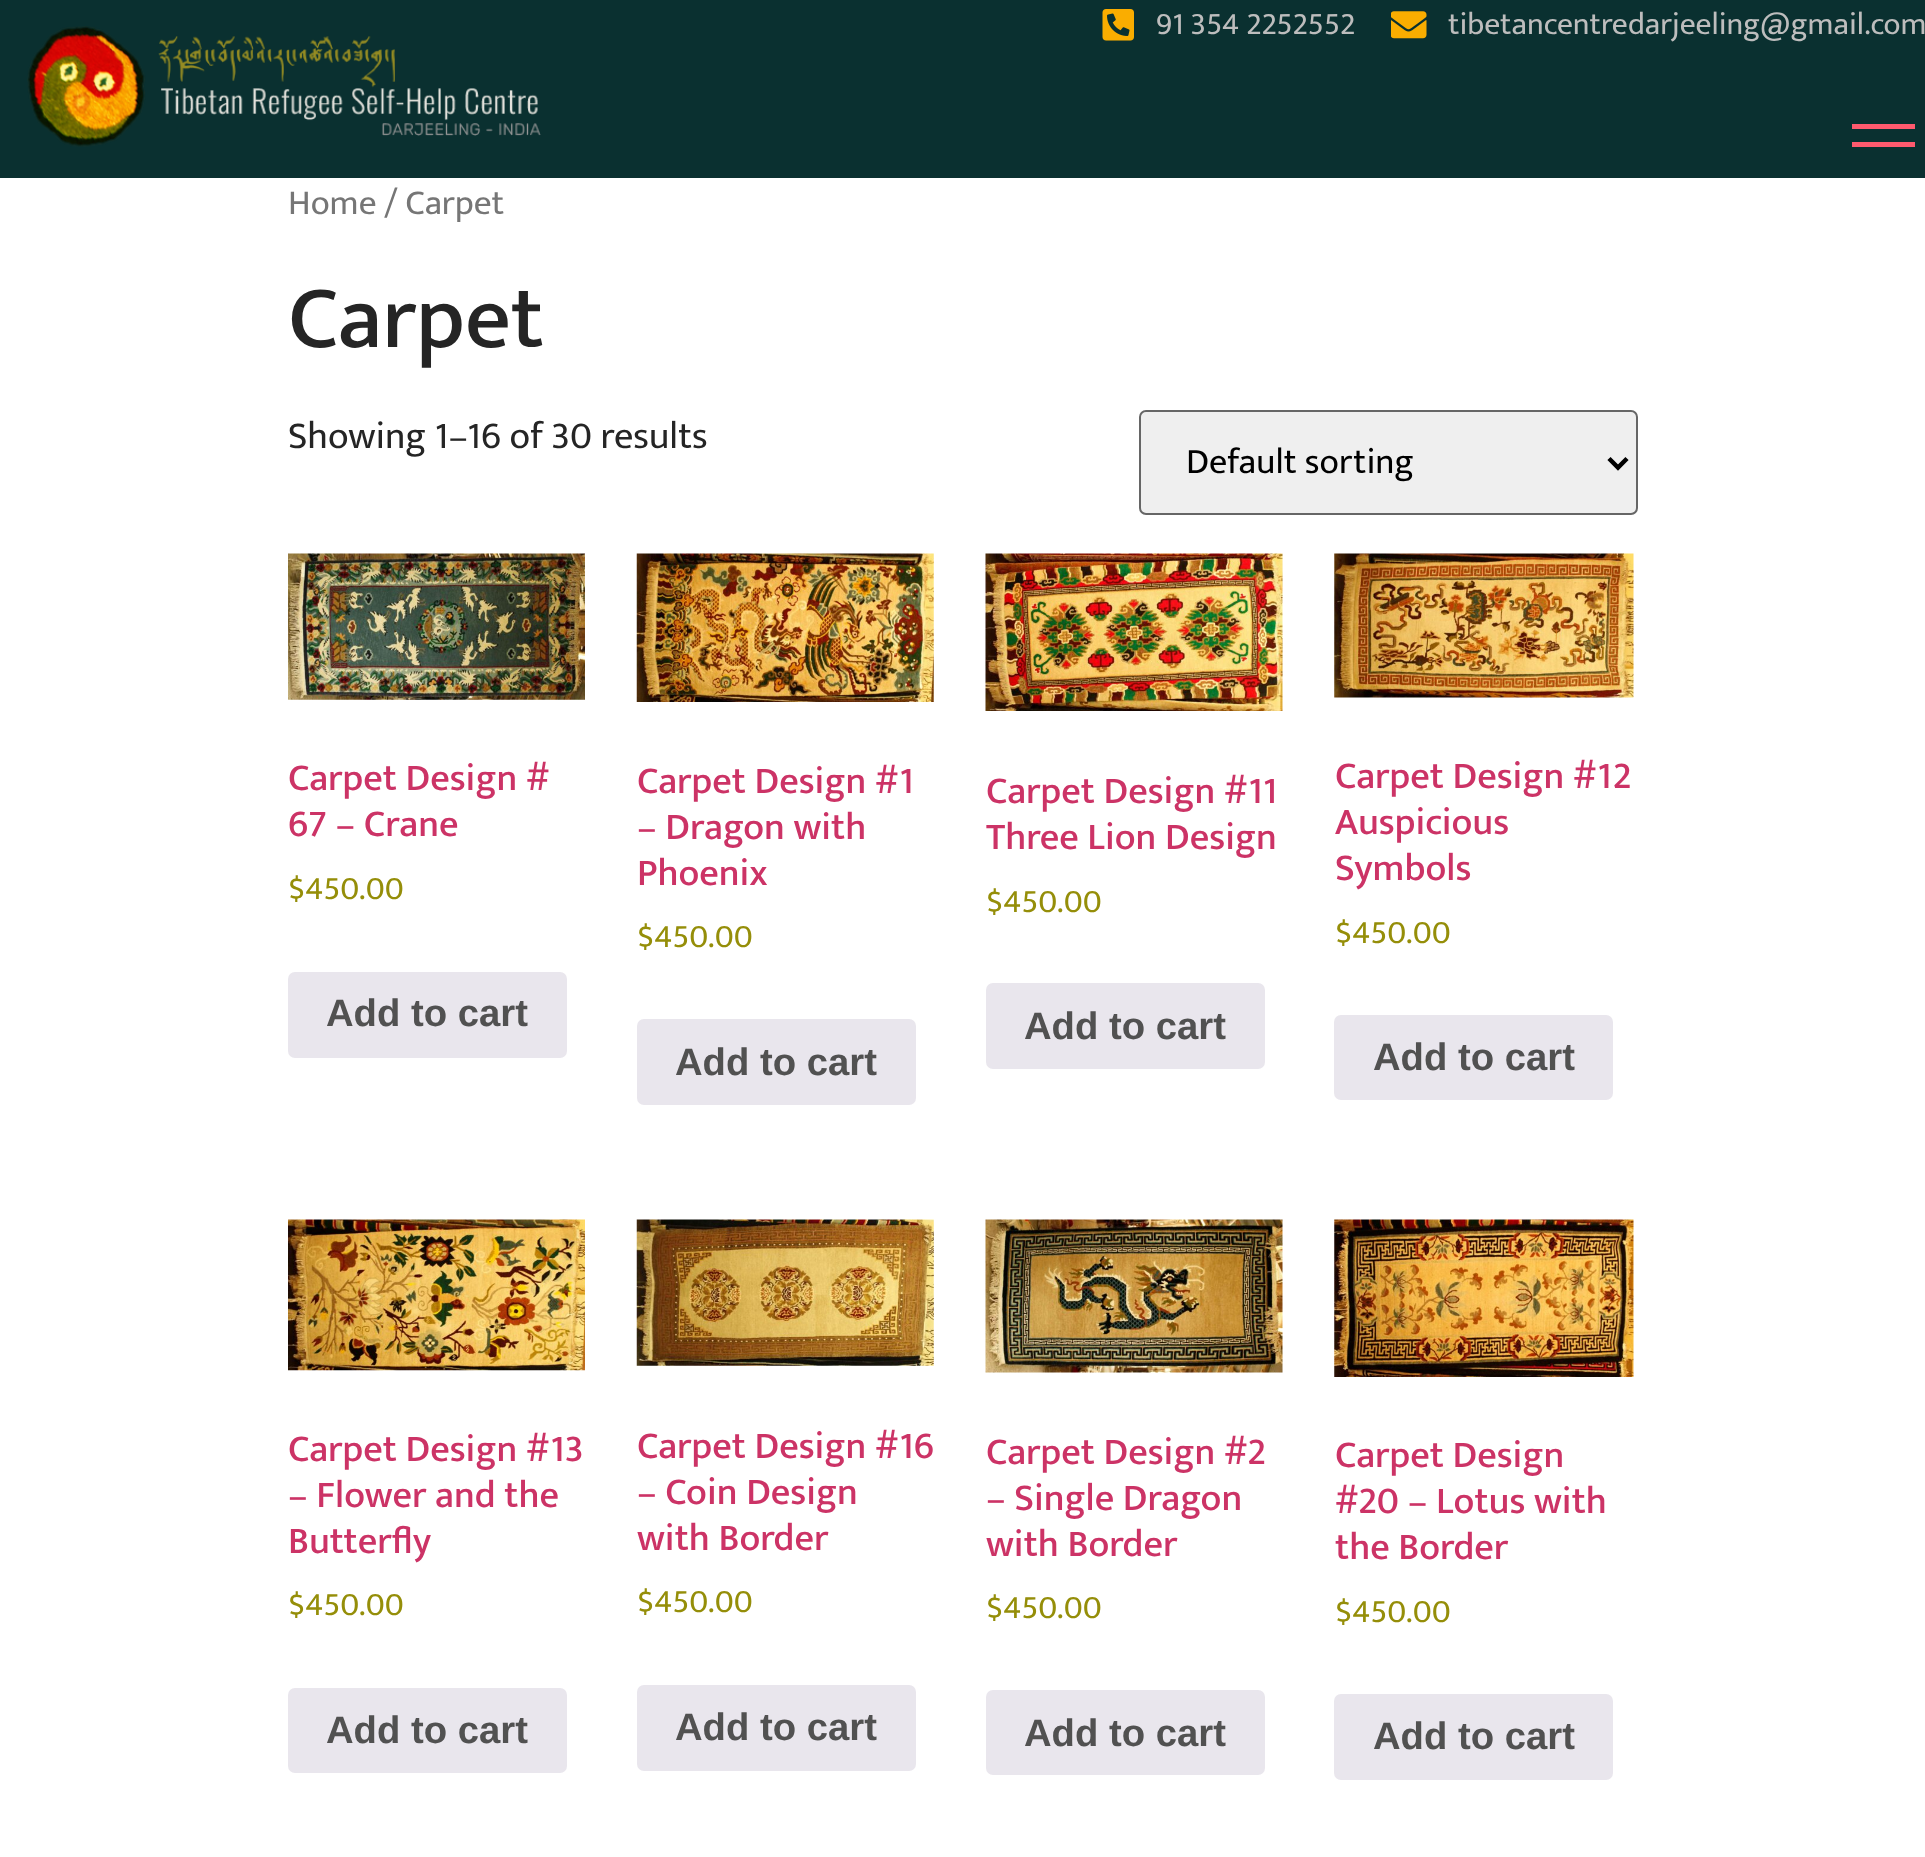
<!DOCTYPE html>
<meta charset="utf-8">
<style>body { margin: 0 } canvas { display: block }</style>
<canvas id="canvas" width="1925" height="1857"></canvas>
<script type="module">
  const canvas = document.getElementById("canvas");
  const ctx = canvas.getContext("2d");
  ctx.miterLimit = 4;
  ctx.fontKerning = "normal";
  async function loadImage(src) {
    const img = new Image();
    img.src = src;
    await img.decode();
    return img;
  }

  ctx.fillStyle = "#ffffff";
  ctx.fillRect(0, 0, 1925, 1857);
  ctx.fillStyle = "#0a3030";
  ctx.fillRect(0, 0, 1925, 178);
  ctx.drawImage(await loadImage("img1.png"), 27, 26, 514, 121);
  ctx.drawImage(await loadImage("img2.png"), 1102, 9, 32, 32);
  ctx.font = "31.5px Mukta";
  ctx.fillStyle = "#bdbdbd";
  ctx.fillText("91 354 2252552", 1156, 34);
  ctx.drawImage(await loadImage("img3.png"), 1391, 11, 36, 28);
  ctx.fillText("tibetancentredarjeeling@gmail.com", 1448, 34);
  ctx.fillStyle = "#ff5a6e";
  ctx.fillRect(1852, 124, 63, 5);
  ctx.fillRect(1852, 142, 63, 5);
  ctx.font = "35.25px Mukta";
  ctx.fillStyle = "#767676";
  ctx.fillText("Home / Carpet", 288, 214);
  ctx.font = "500 90px Mukta";
  ctx.fillStyle = "#252525";
  ctx.fillText("Carpet", 288, 347);
  ctx.font = "38.25px Mukta";
  ctx.fillText("Showing 1–16 of 30 results", 288, 448);
  ctx.fillStyle = "#efefef";
  ctx.beginPath();
  ctx.roundRect(1140, 411, 497, 103, 6);
  ctx.fill();
  ctx.strokeStyle = "#666666";
  ctx.lineWidth = 2;
  ctx.stroke();
  ctx.beginPath();
  ctx.moveTo(1609, 458.5);
  ctx.lineTo(1618, 467.5);
  ctx.lineTo(1627, 458.5);
  ctx.strokeStyle = "#000000";
  ctx.lineWidth = 4.5;
  ctx.stroke();
  ctx.font = "36px Mukta";
  ctx.fillStyle = "#000000";
  ctx.fillText("Default sorting", 1186, 473);
  ctx.drawImage(await loadImage("img4.png"), 288, 553, 297, 147);
  ctx.font = "500 38.25px Mukta";
  ctx.fillStyle = "#cc3366";
  ctx.fillText("Carpet Design #", 288, 790);
  ctx.fillText("67 – Crane", 288, 836);
  ctx.font = "33px Mukta";
  ctx.fillStyle = "#958e09";
  ctx.fillText("$450.00", 288, 899);
  ctx.fillStyle = "#e9e6ed";
  ctx.beginPath();
  ctx.roundRect(288, 972, 279, 86, 7);
  ctx.fill();
  ctx.font = "bold 38.25px Liberation Sans";
  ctx.fillStyle = "#515151";
  ctx.fillText("Add to cart", 326, 1026);
  ctx.drawImage(await loadImage("img5.png"), 636, 553, 298, 149);
  ctx.font = "500 38.25px Mukta";
  ctx.fillStyle = "#cc3366";
  ctx.fillText("Carpet Design #1", 637, 793);
  ctx.fillText("– Dragon with", 637, 839);
  ctx.fillText("Phoenix", 637, 885);
  ctx.font = "33px Mukta";
  ctx.fillStyle = "#958e09";
  ctx.fillText("$450.00", 637, 947);
  ctx.fillStyle = "#e9e6ed";
  ctx.beginPath();
  ctx.roundRect(637, 1019, 279, 86, 7);
  ctx.fill();
  ctx.font = "bold 38.25px Liberation Sans";
  ctx.fillStyle = "#515151";
  ctx.fillText("Add to cart", 675, 1075);
  ctx.drawImage(await loadImage("img6.png"), 985, 553, 298, 158);
  ctx.font = "500 38.25px Mukta";
  ctx.fillStyle = "#cc3366";
  ctx.fillText("Carpet Design #11", 986, 803);
  ctx.fillText("Three Lion Design", 986, 849);
  ctx.font = "33px Mukta";
  ctx.fillStyle = "#958e09";
  ctx.fillText("$450.00", 986, 912);
  ctx.fillStyle = "#e9e6ed";
  ctx.beginPath();
  ctx.roundRect(986, 983, 279, 86, 7);
  ctx.fill();
  ctx.font = "bold 38.25px Liberation Sans";
  ctx.fillStyle = "#515151";
  ctx.fillText("Add to cart", 1024, 1039);
  ctx.drawImage(await loadImage("img7.png"), 1334, 553, 300, 145);
  ctx.font = "500 38.25px Mukta";
  ctx.fillStyle = "#cc3366";
  ctx.fillText("Carpet Design #12", 1335, 788);
  ctx.fillText("Auspicious", 1335, 834);
  ctx.fillText("Symbols", 1335, 880);
  ctx.font = "33px Mukta";
  ctx.fillStyle = "#958e09";
  ctx.fillText("$450.00", 1335, 943);
  ctx.fillStyle = "#e9e6ed";
  ctx.beginPath();
  ctx.roundRect(1334, 1015, 279, 85, 7);
  ctx.fill();
  ctx.font = "bold 38.25px Liberation Sans";
  ctx.fillStyle = "#515151";
  ctx.fillText("Add to cart", 1373, 1070);
  ctx.drawImage(await loadImage("img8.png"), 288, 1219, 297, 152);
  ctx.font = "500 38.25px Mukta";
  ctx.fillStyle = "#cc3366";
  ctx.fillText("Carpet Design #13", 288, 1461);
  ctx.fillText("– Flower and the", 288, 1507);
  ctx.fillText("Butterfly", 288, 1553);
  ctx.font = "33px Mukta";
  ctx.fillStyle = "#958e09";
  ctx.fillText("$450.00", 288, 1615);
  ctx.fillStyle = "#e9e6ed";
  ctx.beginPath();
  ctx.roundRect(288, 1688, 279, 85, 7);
  ctx.fill();
  ctx.font = "bold 38.25px Liberation Sans";
  ctx.fillStyle = "#515151";
  ctx.fillText("Add to cart", 326, 1743);
  ctx.drawImage(await loadImage("img9.png"), 636, 1219, 298, 147);
  ctx.font = "500 38.25px Mukta";
  ctx.fillStyle = "#cc3366";
  ctx.fillText("Carpet Design #16", 637, 1458);
  ctx.fillText("– Coin Design", 637, 1504);
  ctx.fillText("with Border", 637, 1550);
  ctx.font = "33px Mukta";
  ctx.fillStyle = "#958e09";
  ctx.fillText("$450.00", 637, 1612);
  ctx.fillStyle = "#e9e6ed";
  ctx.beginPath();
  ctx.roundRect(637, 1685, 279, 86, 7);
  ctx.fill();
  ctx.font = "bold 38.25px Liberation Sans";
  ctx.fillStyle = "#515151";
  ctx.fillText("Add to cart", 675, 1740);
  ctx.drawImage(await loadImage("img10.png"), 985, 1219, 298, 154);
  ctx.font = "500 38.25px Mukta";
  ctx.fillStyle = "#cc3366";
  ctx.fillText("Carpet Design #2", 986, 1464);
  ctx.fillText("– Single Dragon", 986, 1510);
  ctx.fillText("with Border", 986, 1556);
  ctx.font = "33px Mukta";
  ctx.fillStyle = "#958e09";
  ctx.fillText("$450.00", 986, 1618);
  ctx.fillStyle = "#e9e6ed";
  ctx.beginPath();
  ctx.roundRect(986, 1690, 279, 85, 7);
  ctx.fill();
  ctx.font = "bold 38.25px Liberation Sans";
  ctx.fillStyle = "#515151";
  ctx.fillText("Add to cart", 1024, 1746);
  ctx.drawImage(await loadImage("img11.png"), 1334, 1219, 300, 158);
  ctx.font = "500 38.25px Mukta";
  ctx.fillStyle = "#cc3366";
  ctx.fillText("Carpet Design", 1335, 1467);
  ctx.fillText("#20 – Lotus with", 1335, 1513);
  ctx.fillText("the Border", 1335, 1559);
  ctx.font = "33px Mukta";
  ctx.fillStyle = "#958e09";
  ctx.fillText("$450.00", 1335, 1622);
  ctx.fillStyle = "#e9e6ed";
  ctx.beginPath();
  ctx.roundRect(1334, 1694, 279, 86, 7);
  ctx.fill();
  ctx.font = "bold 38.25px Liberation Sans";
  ctx.fillStyle = "#515151";
  ctx.fillText("Add to cart", 1373, 1749);
</script>
